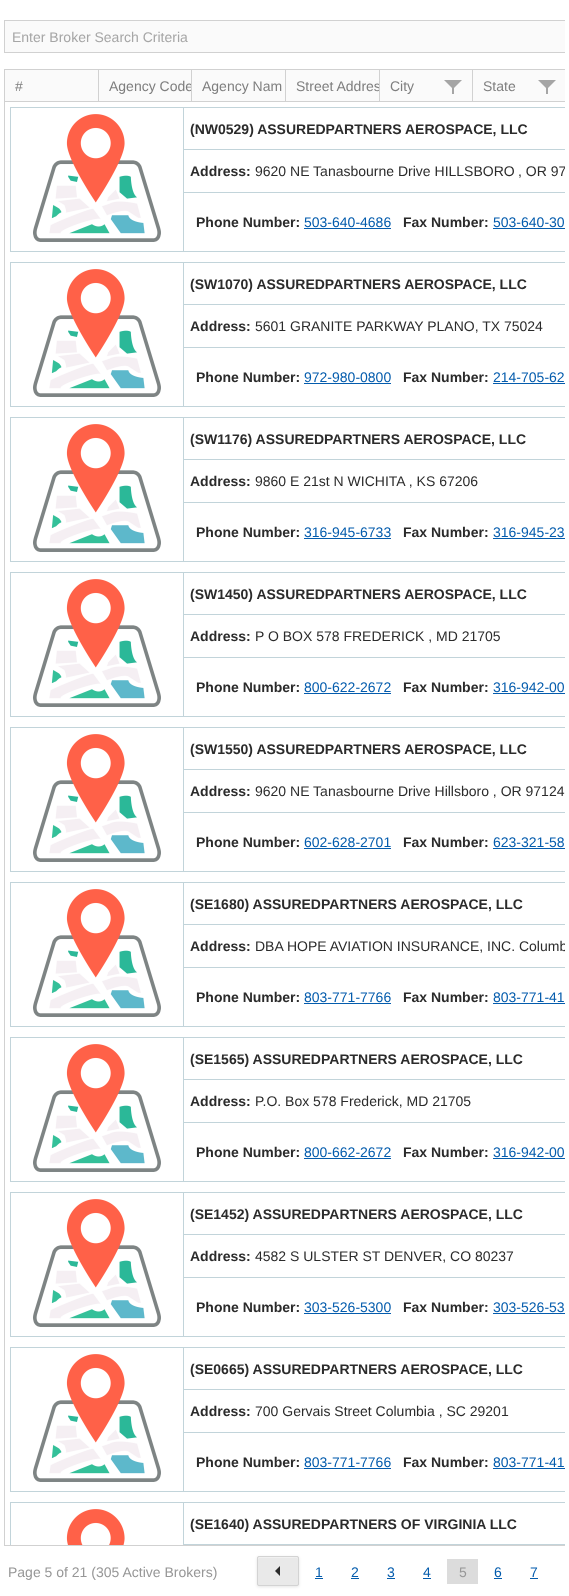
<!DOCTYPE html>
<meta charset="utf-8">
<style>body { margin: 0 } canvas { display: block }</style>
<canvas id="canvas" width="569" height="1596"></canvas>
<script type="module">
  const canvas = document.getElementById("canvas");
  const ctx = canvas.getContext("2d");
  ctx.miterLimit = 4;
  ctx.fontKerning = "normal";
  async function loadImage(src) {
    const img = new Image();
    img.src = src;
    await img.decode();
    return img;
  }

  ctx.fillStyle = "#ffffff";
  ctx.fillRect(0, 0, 569, 1596);
  ctx.fillStyle = "#fafafa";
  ctx.fillRect(5, 21, 560, 31);
  ctx.save();
  ctx.beginPath();
  ctx.rect(4, 4, 561, 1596);
  ctx.clip();
  ctx.strokeStyle = "#d1d1d1";
  ctx.strokeRect(4.5, 20.5, 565, 32);
  ctx.restore();
  ctx.font = "14px Liberation Sans";
  ctx.fillStyle = "#a6a6a6";
  ctx.fillText("Enter Broker Search Criteria", 12, 42);
  ctx.fillStyle = "#d1d1d1";
  ctx.fillRect(4, 69, 561, 1);
  ctx.fillRect(4, 69, 1, 33);
  ctx.fillStyle = "#fafafa";
  ctx.fillRect(5, 70, 93, 31);
  ctx.fillStyle = "#d1d1d1";
  ctx.fillRect(98, 70, 1, 32);
  ctx.fillRect(5, 101, 94, 1);
  ctx.fillStyle = "#7e7e7e";
  ctx.fillText("#", 15, 91);
  ctx.fillStyle = "#fafafa";
  ctx.fillRect(99, 70, 92, 31);
  ctx.fillStyle = "#d1d1d1";
  ctx.fillRect(191, 70, 1, 32);
  ctx.fillRect(99, 101, 93, 1);
  ctx.save();
  ctx.beginPath();
  ctx.rect(99, 70, 92, 31);
  ctx.clip();
  ctx.fillStyle = "#7e7e7e";
  ctx.fillText("Agency Code", 109, 91);
  ctx.restore();
  ctx.fillStyle = "#fafafa";
  ctx.fillRect(192, 70, 93, 31);
  ctx.fillStyle = "#d1d1d1";
  ctx.fillRect(285, 70, 1, 32);
  ctx.fillRect(192, 101, 94, 1);
  ctx.fillStyle = "#7e7e7e";
  ctx.fillText("Agency Nam", 202, 91);
  ctx.fillStyle = "#fafafa";
  ctx.fillRect(286, 70, 93, 31);
  ctx.fillStyle = "#d1d1d1";
  ctx.fillRect(379, 70, 1, 32);
  ctx.fillRect(286, 101, 94, 1);
  ctx.save();
  ctx.beginPath();
  ctx.rect(286, 70, 93, 31);
  ctx.clip();
  ctx.fillStyle = "#7e7e7e";
  ctx.fillText("Street Addres", 296, 91);
  ctx.restore();
  ctx.fillStyle = "#fafafa";
  ctx.fillRect(380, 70, 92, 31);
  ctx.fillStyle = "#d1d1d1";
  ctx.fillRect(472, 70, 1, 32);
  ctx.fillRect(380, 101, 185, 1);
  ctx.fillStyle = "#7e7e7e";
  ctx.fillText("City", 390, 91);
  ctx.drawImage(await loadImage("img1.png"), 444, 80, 18, 14);
  ctx.fillStyle = "#fafafa";
  ctx.fillRect(473, 70, 92, 31);
  ctx.fillStyle = "#7e7e7e";
  ctx.fillText("State", 483, 91);
  ctx.drawImage(await loadImage("img1.png"), 538, 80, 18, 14);
  ctx.fillStyle = "#d1d1d1";
  ctx.fillRect(4, 1545, 561, 1);
  ctx.fillRect(4, 102, 1, 1444);
  ctx.fillStyle = "#c2d4da";
  ctx.fillRect(183, 107, 382, 1);
  ctx.fillRect(183, 149, 382, 1);
  ctx.fillRect(183, 192, 382, 1);
  ctx.fillRect(183, 251, 382, 1);
  ctx.fillRect(183, 192, 1, 60);
  ctx.fillRect(183, 149, 1, 44);
  ctx.fillRect(183, 107, 1, 43);
  ctx.fillRect(10, 107, 174, 1);
  ctx.fillRect(10, 251, 174, 1);
  ctx.fillRect(10, 107, 1, 145);
  ctx.drawImage(await loadImage("img2.png"), 33, 114, 128, 128);
  ctx.font = "bold 14px Liberation Sans";
  ctx.fillStyle = "#2b2b2b";
  ctx.fillText("(NW0529) ASSUREDPARTNERS AEROSPACE, LLC", 190, 134);
  ctx.fillText("Address:", 190, 176);
  ctx.font = "14px Liberation Sans";
  ctx.fillText("9620 NE Tanasbourne Drive HILLSBORO", 255, 176);
  ctx.save();
  ctx.beginPath();
  ctx.rect(5, 102, 560, 1443);
  ctx.clip();
  ctx.fillText(", OR 97", 518, 176);
  ctx.restore();
  ctx.font = "bold 14px Liberation Sans";
  ctx.fillText("Phone Number:", 196, 227);
  ctx.font = "14px Liberation Sans";
  ctx.fillStyle = "#045cad";
  ctx.fillText("503-640-4686", 304, 227);
  ctx.fillRect(304, 228, 87, 1);
  ctx.font = "bold 14px Liberation Sans";
  ctx.fillStyle = "#2b2b2b";
  ctx.fillText("Fax Number:", 403, 227);
  ctx.font = "14px Liberation Sans";
  ctx.fillStyle = "#045cad";
  ctx.fillText("503-640-30", 493, 227);
  ctx.fillRect(493, 228, 72, 1);
  ctx.fillStyle = "#c2d4da";
  ctx.fillRect(183, 262, 382, 1);
  ctx.fillRect(183, 304, 382, 1);
  ctx.fillRect(183, 347, 382, 1);
  ctx.fillRect(183, 406, 382, 1);
  ctx.fillRect(183, 347, 1, 60);
  ctx.fillRect(183, 304, 1, 44);
  ctx.fillRect(183, 262, 1, 43);
  ctx.fillRect(10, 262, 174, 1);
  ctx.fillRect(10, 406, 174, 1);
  ctx.fillRect(10, 262, 1, 145);
  ctx.drawImage(await loadImage("img2.png"), 33, 269, 128, 128);
  ctx.font = "bold 14px Liberation Sans";
  ctx.fillStyle = "#2b2b2b";
  ctx.fillText("(SW1070) ASSUREDPARTNERS AEROSPACE, LLC", 190, 289);
  ctx.fillText("Address:", 190, 331);
  ctx.font = "14px Liberation Sans";
  ctx.fillText("5601 GRANITE PARKWAY PLANO, TX 75024", 255, 331);
  ctx.font = "bold 14px Liberation Sans";
  ctx.fillText("Phone Number:", 196, 382);
  ctx.font = "14px Liberation Sans";
  ctx.fillStyle = "#045cad";
  ctx.fillText("972-980-0800", 304, 382);
  ctx.fillRect(304, 383, 87, 1);
  ctx.font = "bold 14px Liberation Sans";
  ctx.fillStyle = "#2b2b2b";
  ctx.fillText("Fax Number:", 403, 382);
  ctx.font = "14px Liberation Sans";
  ctx.fillStyle = "#045cad";
  ctx.fillText("214-705-62", 493, 382);
  ctx.fillRect(493, 383, 72, 1);
  ctx.fillStyle = "#c2d4da";
  ctx.fillRect(183, 417, 382, 1);
  ctx.fillRect(183, 459, 382, 1);
  ctx.fillRect(183, 502, 382, 1);
  ctx.fillRect(183, 561, 382, 1);
  ctx.fillRect(183, 502, 1, 60);
  ctx.fillRect(183, 459, 1, 44);
  ctx.fillRect(183, 417, 1, 43);
  ctx.fillRect(10, 417, 174, 1);
  ctx.fillRect(10, 561, 174, 1);
  ctx.fillRect(10, 417, 1, 145);
  ctx.drawImage(await loadImage("img2.png"), 33, 424, 128, 128);
  ctx.font = "bold 14px Liberation Sans";
  ctx.fillStyle = "#2b2b2b";
  ctx.fillText("(SW1176) ASSUREDPARTNERS AEROSPACE, LLC", 190, 444);
  ctx.fillText("Address:", 190, 486);
  ctx.font = "14px Liberation Sans";
  ctx.fillText("9860 E 21st N WICHITA , KS 67206", 255, 486);
  ctx.font = "bold 14px Liberation Sans";
  ctx.fillText("Phone Number:", 196, 537);
  ctx.font = "14px Liberation Sans";
  ctx.fillStyle = "#045cad";
  ctx.fillText("316-945-6733", 304, 537);
  ctx.fillRect(304, 538, 87, 1);
  ctx.font = "bold 14px Liberation Sans";
  ctx.fillStyle = "#2b2b2b";
  ctx.fillText("Fax Number:", 403, 537);
  ctx.font = "14px Liberation Sans";
  ctx.fillStyle = "#045cad";
  ctx.fillText("316-945-23", 493, 537);
  ctx.fillRect(493, 538, 72, 1);
  ctx.fillStyle = "#c2d4da";
  ctx.fillRect(183, 572, 382, 1);
  ctx.fillRect(183, 614, 382, 1);
  ctx.fillRect(183, 657, 382, 1);
  ctx.fillRect(183, 716, 382, 1);
  ctx.fillRect(183, 657, 1, 60);
  ctx.fillRect(183, 614, 1, 44);
  ctx.fillRect(183, 572, 1, 43);
  ctx.fillRect(10, 572, 174, 1);
  ctx.fillRect(10, 716, 174, 1);
  ctx.fillRect(10, 572, 1, 145);
  ctx.drawImage(await loadImage("img2.png"), 33, 579, 128, 128);
  ctx.font = "bold 14px Liberation Sans";
  ctx.fillStyle = "#2b2b2b";
  ctx.fillText("(SW1450) ASSUREDPARTNERS AEROSPACE, LLC", 190, 599);
  ctx.fillText("Address:", 190, 641);
  ctx.font = "14px Liberation Sans";
  ctx.fillText("P O BOX 578 FREDERICK , MD 21705", 255, 641);
  ctx.font = "bold 14px Liberation Sans";
  ctx.fillText("Phone Number:", 196, 692);
  ctx.font = "14px Liberation Sans";
  ctx.fillStyle = "#045cad";
  ctx.fillText("800-622-2672", 304, 692);
  ctx.fillRect(304, 693, 87, 1);
  ctx.font = "bold 14px Liberation Sans";
  ctx.fillStyle = "#2b2b2b";
  ctx.fillText("Fax Number:", 403, 692);
  ctx.font = "14px Liberation Sans";
  ctx.fillStyle = "#045cad";
  ctx.fillText("316-942-00", 493, 692);
  ctx.fillRect(493, 693, 72, 1);
  ctx.fillStyle = "#c2d4da";
  ctx.fillRect(183, 727, 382, 1);
  ctx.fillRect(183, 769, 382, 1);
  ctx.fillRect(183, 812, 382, 1);
  ctx.fillRect(183, 871, 382, 1);
  ctx.fillRect(183, 812, 1, 60);
  ctx.fillRect(183, 769, 1, 44);
  ctx.fillRect(183, 727, 1, 43);
  ctx.fillRect(10, 727, 174, 1);
  ctx.fillRect(10, 871, 174, 1);
  ctx.fillRect(10, 727, 1, 145);
  ctx.drawImage(await loadImage("img2.png"), 33, 734, 128, 128);
  ctx.font = "bold 14px Liberation Sans";
  ctx.fillStyle = "#2b2b2b";
  ctx.fillText("(SW1550) ASSUREDPARTNERS AEROSPACE, LLC", 190, 754);
  ctx.fillText("Address:", 190, 796);
  ctx.font = "14px Liberation Sans";
  ctx.fillText("9620 NE Tanasbourne Drive Hillsboro , OR 97124", 255, 796);
  ctx.font = "bold 14px Liberation Sans";
  ctx.fillText("Phone Number:", 196, 847);
  ctx.font = "14px Liberation Sans";
  ctx.fillStyle = "#045cad";
  ctx.fillText("602-628-2701", 304, 847);
  ctx.fillRect(304, 848, 87, 1);
  ctx.font = "bold 14px Liberation Sans";
  ctx.fillStyle = "#2b2b2b";
  ctx.fillText("Fax Number:", 403, 847);
  ctx.font = "14px Liberation Sans";
  ctx.fillStyle = "#045cad";
  ctx.fillText("623-321-58", 493, 847);
  ctx.fillRect(493, 848, 72, 1);
  ctx.fillStyle = "#c2d4da";
  ctx.fillRect(183, 882, 382, 1);
  ctx.fillRect(183, 924, 382, 1);
  ctx.fillRect(183, 967, 382, 1);
  ctx.fillRect(183, 1026, 382, 1);
  ctx.fillRect(183, 967, 1, 60);
  ctx.fillRect(183, 924, 1, 44);
  ctx.fillRect(183, 882, 1, 43);
  ctx.fillRect(10, 882, 174, 1);
  ctx.fillRect(10, 1026, 174, 1);
  ctx.fillRect(10, 882, 1, 145);
  ctx.drawImage(await loadImage("img2.png"), 33, 889, 128, 128);
  ctx.font = "bold 14px Liberation Sans";
  ctx.fillStyle = "#2b2b2b";
  ctx.fillText("(SE1680) ASSUREDPARTNERS AEROSPACE, LLC", 190, 909);
  ctx.fillText("Address:", 190, 951);
  ctx.save();
  ctx.beginPath();
  ctx.rect(5, 102, 560, 1443);
  ctx.clip();
  ctx.font = "14px Liberation Sans";
  ctx.fillText("DBA HOPE AVIATION INSURANCE, INC. Columb", 255, 951);
  ctx.restore();
  ctx.fillText("Phone Number:", 196, 1002);
  ctx.font = "14px Liberation Sans";
  ctx.fillStyle = "#045cad";
  ctx.fillText("803-771-7766", 304, 1002);
  ctx.fillRect(304, 1003, 87, 1);
  ctx.font = "bold 14px Liberation Sans";
  ctx.fillStyle = "#2b2b2b";
  ctx.fillText("Fax Number:", 403, 1002);
  ctx.font = "14px Liberation Sans";
  ctx.fillStyle = "#045cad";
  ctx.fillText("803-771-41", 493, 1002);
  ctx.fillRect(493, 1003, 72, 1);
  ctx.fillStyle = "#c2d4da";
  ctx.fillRect(183, 1037, 382, 1);
  ctx.fillRect(183, 1079, 382, 1);
  ctx.fillRect(183, 1122, 382, 1);
  ctx.fillRect(183, 1181, 382, 1);
  ctx.fillRect(183, 1122, 1, 60);
  ctx.fillRect(183, 1079, 1, 44);
  ctx.fillRect(183, 1037, 1, 43);
  ctx.fillRect(10, 1037, 174, 1);
  ctx.fillRect(10, 1181, 174, 1);
  ctx.fillRect(10, 1037, 1, 145);
  ctx.drawImage(await loadImage("img2.png"), 33, 1044, 128, 128);
  ctx.font = "bold 14px Liberation Sans";
  ctx.fillStyle = "#2b2b2b";
  ctx.fillText("(SE1565) ASSUREDPARTNERS AEROSPACE, LLC", 190, 1064);
  ctx.fillText("Address:", 190, 1106);
  ctx.font = "14px Liberation Sans";
  ctx.fillText("P.O. Box 578 Frederick, MD 21705", 255, 1106);
  ctx.font = "bold 14px Liberation Sans";
  ctx.fillText("Phone Number:", 196, 1157);
  ctx.font = "14px Liberation Sans";
  ctx.fillStyle = "#045cad";
  ctx.fillText("800-662-2672", 304, 1157);
  ctx.fillRect(304, 1158, 87, 1);
  ctx.font = "bold 14px Liberation Sans";
  ctx.fillStyle = "#2b2b2b";
  ctx.fillText("Fax Number:", 403, 1157);
  ctx.font = "14px Liberation Sans";
  ctx.fillStyle = "#045cad";
  ctx.fillText("316-942-00", 493, 1157);
  ctx.fillRect(493, 1158, 72, 1);
  ctx.fillStyle = "#c2d4da";
  ctx.fillRect(183, 1192, 382, 1);
  ctx.fillRect(183, 1234, 382, 1);
  ctx.fillRect(183, 1277, 382, 1);
  ctx.fillRect(183, 1336, 382, 1);
  ctx.fillRect(183, 1277, 1, 60);
  ctx.fillRect(183, 1234, 1, 44);
  ctx.fillRect(183, 1192, 1, 43);
  ctx.fillRect(10, 1192, 174, 1);
  ctx.fillRect(10, 1336, 174, 1);
  ctx.fillRect(10, 1192, 1, 145);
  ctx.drawImage(await loadImage("img2.png"), 33, 1199, 128, 128);
  ctx.font = "bold 14px Liberation Sans";
  ctx.fillStyle = "#2b2b2b";
  ctx.fillText("(SE1452) ASSUREDPARTNERS AEROSPACE, LLC", 190, 1219);
  ctx.fillText("Address:", 190, 1261);
  ctx.font = "14px Liberation Sans";
  ctx.fillText("4582 S ULSTER ST DENVER, CO 80237", 255, 1261);
  ctx.font = "bold 14px Liberation Sans";
  ctx.fillText("Phone Number:", 196, 1312);
  ctx.font = "14px Liberation Sans";
  ctx.fillStyle = "#045cad";
  ctx.fillText("303-526-5300", 304, 1312);
  ctx.fillRect(304, 1313, 87, 1);
  ctx.font = "bold 14px Liberation Sans";
  ctx.fillStyle = "#2b2b2b";
  ctx.fillText("Fax Number:", 403, 1312);
  ctx.font = "14px Liberation Sans";
  ctx.fillStyle = "#045cad";
  ctx.fillText("303-526-53", 493, 1312);
  ctx.fillRect(493, 1313, 72, 1);
  ctx.fillStyle = "#c2d4da";
  ctx.fillRect(183, 1347, 382, 1);
  ctx.fillRect(183, 1389, 382, 1);
  ctx.fillRect(183, 1432, 382, 1);
  ctx.fillRect(183, 1491, 382, 1);
  ctx.fillRect(183, 1432, 1, 60);
  ctx.fillRect(183, 1389, 1, 44);
  ctx.fillRect(183, 1347, 1, 43);
  ctx.fillRect(10, 1347, 174, 1);
  ctx.fillRect(10, 1491, 174, 1);
  ctx.fillRect(10, 1347, 1, 145);
  ctx.drawImage(await loadImage("img2.png"), 33, 1354, 128, 128);
  ctx.font = "bold 14px Liberation Sans";
  ctx.fillStyle = "#2b2b2b";
  ctx.fillText("(SE0665) ASSUREDPARTNERS AEROSPACE, LLC", 190, 1374);
  ctx.fillText("Address:", 190, 1416);
  ctx.font = "14px Liberation Sans";
  ctx.fillText("700 Gervais Street Columbia , SC 29201", 255, 1416);
  ctx.font = "bold 14px Liberation Sans";
  ctx.fillText("Phone Number:", 196, 1467);
  ctx.font = "14px Liberation Sans";
  ctx.fillStyle = "#045cad";
  ctx.fillText("803-771-7766", 304, 1467);
  ctx.fillRect(304, 1468, 87, 1);
  ctx.font = "bold 14px Liberation Sans";
  ctx.fillStyle = "#2b2b2b";
  ctx.fillText("Fax Number:", 403, 1467);
  ctx.font = "14px Liberation Sans";
  ctx.fillStyle = "#045cad";
  ctx.fillText("803-771-41", 493, 1467);
  ctx.fillRect(493, 1468, 72, 1);
  ctx.fillStyle = "#c2d4da";
  ctx.fillRect(183, 1502, 382, 1);
  ctx.fillRect(183, 1544, 382, 1);
  ctx.fillRect(183, 1502, 1, 43);
  ctx.fillRect(10, 1502, 174, 1);
  ctx.fillRect(10, 1502, 1, 43);
  ctx.drawImage(await loadImage("img3.png"), 66, 1509, 59, 36);
  ctx.font = "bold 14px Liberation Sans";
  ctx.fillStyle = "#2b2b2b";
  ctx.fillText("(SE1640) ASSUREDPARTNERS OF VIRGINIA LLC", 190, 1529);
  ctx.font = "14px Liberation Sans";
  ctx.fillStyle = "#979797";
  ctx.fillText("Page 5 of 21 (305 Active Brokers)", 8, 1577);
  ctx.fillStyle = "rgba(0, 0, 0, 0.1)";
  ctx.filter = "blur(1.5px)";
  ctx.beginPath();
  ctx.roundRect(257, 1557, 42, 30, 2);
  ctx.fill();
  ctx.filter = "none";
  ctx.fillStyle = "#e9e9e9";
  ctx.beginPath();
  ctx.roundRect(257, 1556, 42, 30, 2);
  ctx.fill();
  ctx.fillStyle = "#f1f1f1";
  ctx.beginPath();
  ctx.moveTo(259, 1558);
  ctx.lineTo(291, 1558);
  ctx.bezierCurveTo(292, 1558, 298, 1557, 298, 1559);
  ctx.bezierCurveTo(298, 1555, 294, 1557, 291, 1557);
  ctx.lineTo(265, 1557);
  ctx.bezierCurveTo(262, 1557, 258, 1555, 258, 1559);
  ctx.closePath();
  ctx.fill();
  ctx.beginPath();
  ctx.roundRect(257.5, 1556.5, 41, 29, 1.5);
  ctx.strokeStyle = "#d3d3d3";
  ctx.stroke();
  ctx.drawImage(await loadImage("img4.png"), 275, 1566, 5, 10);
  ctx.fillStyle = "#045cad";
  ctx.fillText("1", 315, 1577);
  ctx.fillRect(315, 1578, 8, 1);
  ctx.fillText("2", 351, 1577);
  ctx.fillRect(351, 1578, 8, 1);
  ctx.fillText("3", 387, 1577);
  ctx.fillRect(387, 1578, 8, 1);
  ctx.fillText("4", 423, 1577);
  ctx.fillRect(423, 1578, 8, 1);
  ctx.fillStyle = "#dcdcdc";
  ctx.fillRect(447, 1559, 31, 25);
  ctx.fillStyle = "#979797";
  ctx.fillText("5", 459, 1577);
  ctx.fillStyle = "#045cad";
  ctx.fillText("6", 494, 1577);
  ctx.fillRect(494, 1578, 8, 1);
  ctx.fillText("7", 530, 1577);
  ctx.fillRect(530, 1578, 8, 1);
</script>
